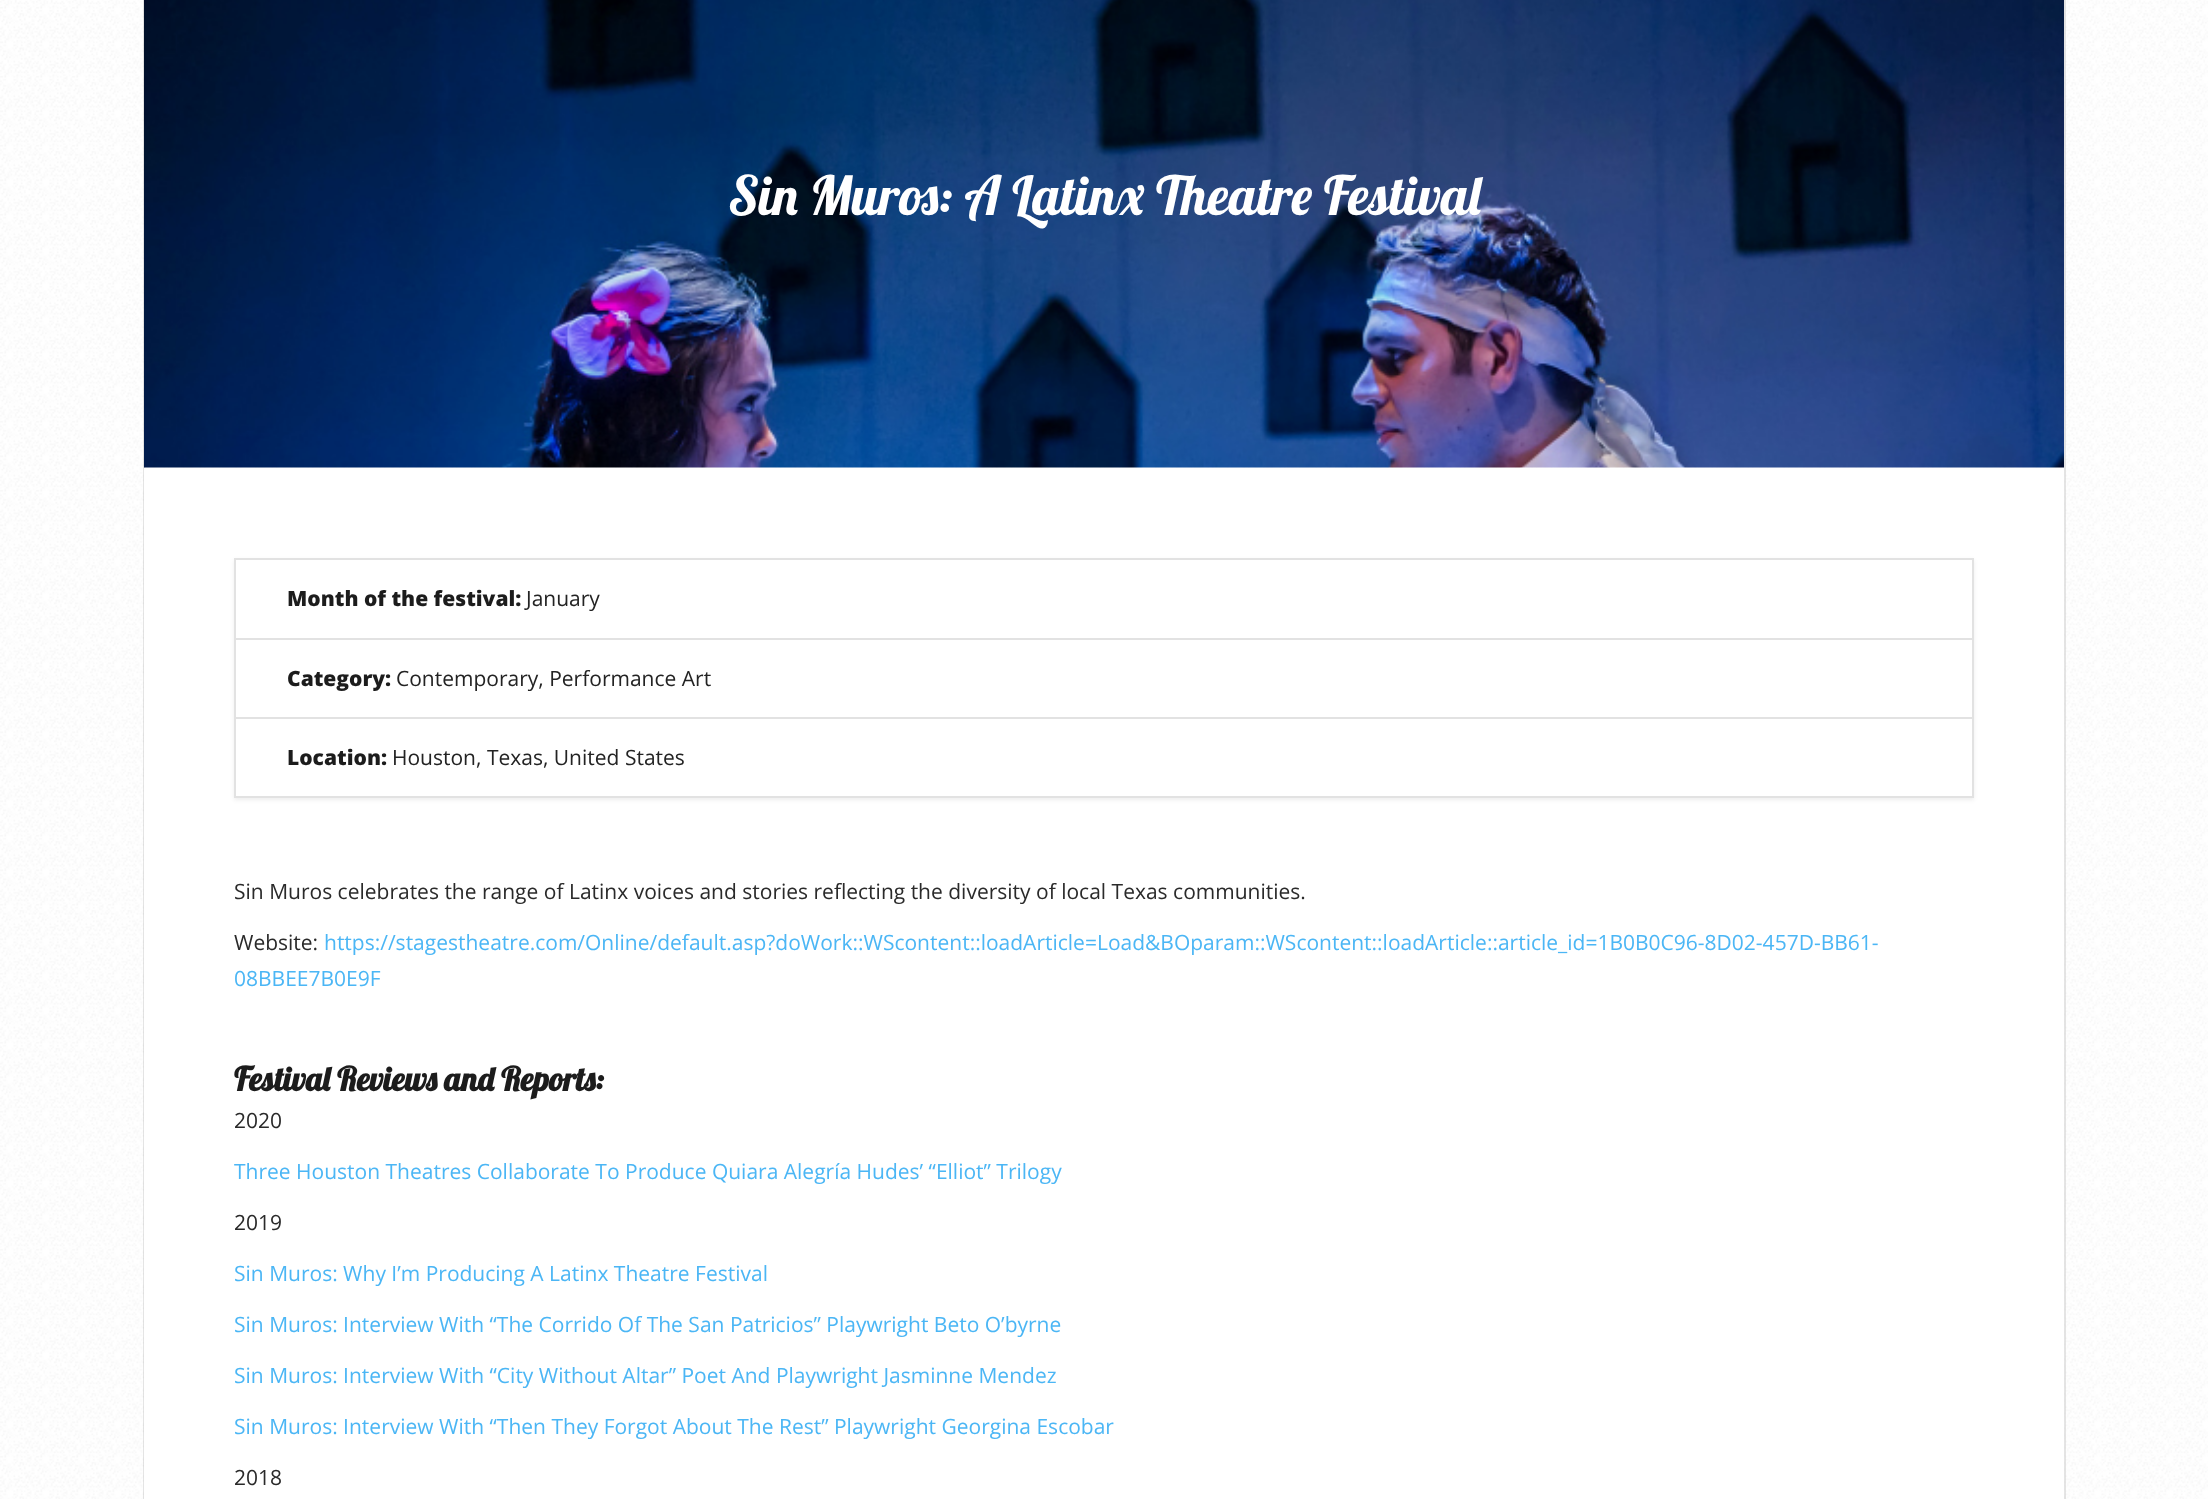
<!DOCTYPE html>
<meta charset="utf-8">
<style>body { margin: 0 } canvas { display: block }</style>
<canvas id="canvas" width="2208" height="1499"></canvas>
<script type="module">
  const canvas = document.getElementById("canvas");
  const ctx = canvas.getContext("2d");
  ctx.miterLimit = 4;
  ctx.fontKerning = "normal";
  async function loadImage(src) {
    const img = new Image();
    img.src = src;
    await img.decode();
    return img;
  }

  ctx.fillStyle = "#ffffff";
  ctx.fillRect(0, 0, 2208, 1499);
  ctx.drawImage(await loadImage("img1.png"), 0, 0, 2208, 1499);
  ctx.strokeStyle = "rgba(0, 0, 0, 0.1)";
  ctx.lineWidth = 2;
  ctx.strokeRect(144, -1, 1921, 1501);
  ctx.drawImage(await loadImage("img2.png"), 144, 0, 1920, 468);
  ctx.font = "54px Lobster";
  ctx.fillText("Sin Muros: A Latinx Theatre Festival", 728, 215);
  ctx.fillRect(144, 468, 1920, 1031);
  ctx.save();
  ctx.beginPath();
  ctx.moveTo(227, 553);
  ctx.lineTo(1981, 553);
  ctx.lineTo(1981, 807);
  ctx.lineTo(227, 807);
  ctx.closePath();
  ctx.moveTo(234, 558);
  ctx.lineTo(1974, 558);
  ctx.lineTo(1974, 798);
  ctx.lineTo(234, 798);
  ctx.closePath();
  ctx.clip("evenodd");
  ctx.fillStyle = "rgba(0, 0, 0, 0.07)";
  ctx.filter = "blur(2px)";
  ctx.beginPath();
  ctx.rect(234, 560, 1740, 240);
  ctx.fill();
  ctx.filter = "none";
  ctx.restore();
  ctx.strokeStyle = "#e2e2e2";
  ctx.strokeRect(235, 559, 1738, 238);
  ctx.fillStyle = "#e2e2e2";
  ctx.fillRect(236, 638, 1737, 2);
  ctx.font = "800 21px Open Sans";
  ctx.fillStyle = "#1c1c1c";
  ctx.fillText("Month of the festival:", 287, 606);
  ctx.font = "21px Open Sans";
  ctx.fillStyle = "#232323";
  ctx.fillText("January", 526, 606);
  ctx.fillStyle = "#e2e2e2";
  ctx.fillRect(236, 717, 1737, 2);
  ctx.font = "800 21px Open Sans";
  ctx.fillStyle = "#1c1c1c";
  ctx.fillText("Category:", 287, 686);
  ctx.font = "21px Open Sans";
  ctx.fillStyle = "#232323";
  ctx.fillText("Contemporary, Performance Art", 396, 686);
  ctx.font = "800 21px Open Sans";
  ctx.fillStyle = "#1c1c1c";
  ctx.fillText("Location:", 287, 765);
  ctx.font = "21px Open Sans";
  ctx.fillStyle = "#232323";
  ctx.fillText("Houston, Texas, United States", 392, 765);
  ctx.fillStyle = "#2a2a2a";
  ctx.fillText("Sin Muros celebrates the range of Latinx voices and stories reflecting the diversity of local Texas communities.", 234, 899);
  ctx.fillText("Website:", 234, 950);
  ctx.fillStyle = "#4bb6f5";
  ctx.fillText("https://stagestheatre.com/Online/default.asp?doWork::WScontent::loadArticle=Load&BOparam::WScontent::loadArticle::article_id=1B0B0C96-8D02-457D-BB61-", 324, 950);
  ctx.fillText("08BBEE7B0E9F", 234, 986);
  ctx.font = "bold 33px Lobster";
  ctx.fillStyle = "#1c1c1c";
  ctx.fillText("Festival Reviews and Reports:", 234, 1091);
  ctx.font = "21px Open Sans";
  ctx.fillStyle = "#2a2a2a";
  ctx.fillText("2020", 234, 1128);
  ctx.fillStyle = "#4bb6f5";
  ctx.fillText("Three Houston Theatres Collaborate To Produce Quiara Alegría Hudes’ “Elliot” Trilogy", 234, 1179);
  ctx.fillStyle = "#2a2a2a";
  ctx.fillText("2019", 234, 1230);
  ctx.fillStyle = "#4bb6f5";
  ctx.fillText("Sin Muros: Why I’m Producing A Latinx Theatre Festival", 234, 1281);
  ctx.fillText("Sin Muros: Interview With “The Corrido Of The San Patricios” Playwright Beto O’byrne", 234, 1332);
  ctx.fillText("Sin Muros: Interview With “City Without Altar” Poet And Playwright Jasminne Mendez", 234, 1383);
  ctx.fillText("Sin Muros: Interview With “Then They Forgot About The Rest” Playwright Georgina Escobar", 234, 1434);
  ctx.fillStyle = "#2a2a2a";
  ctx.fillText("2018", 234, 1485);
</script>
